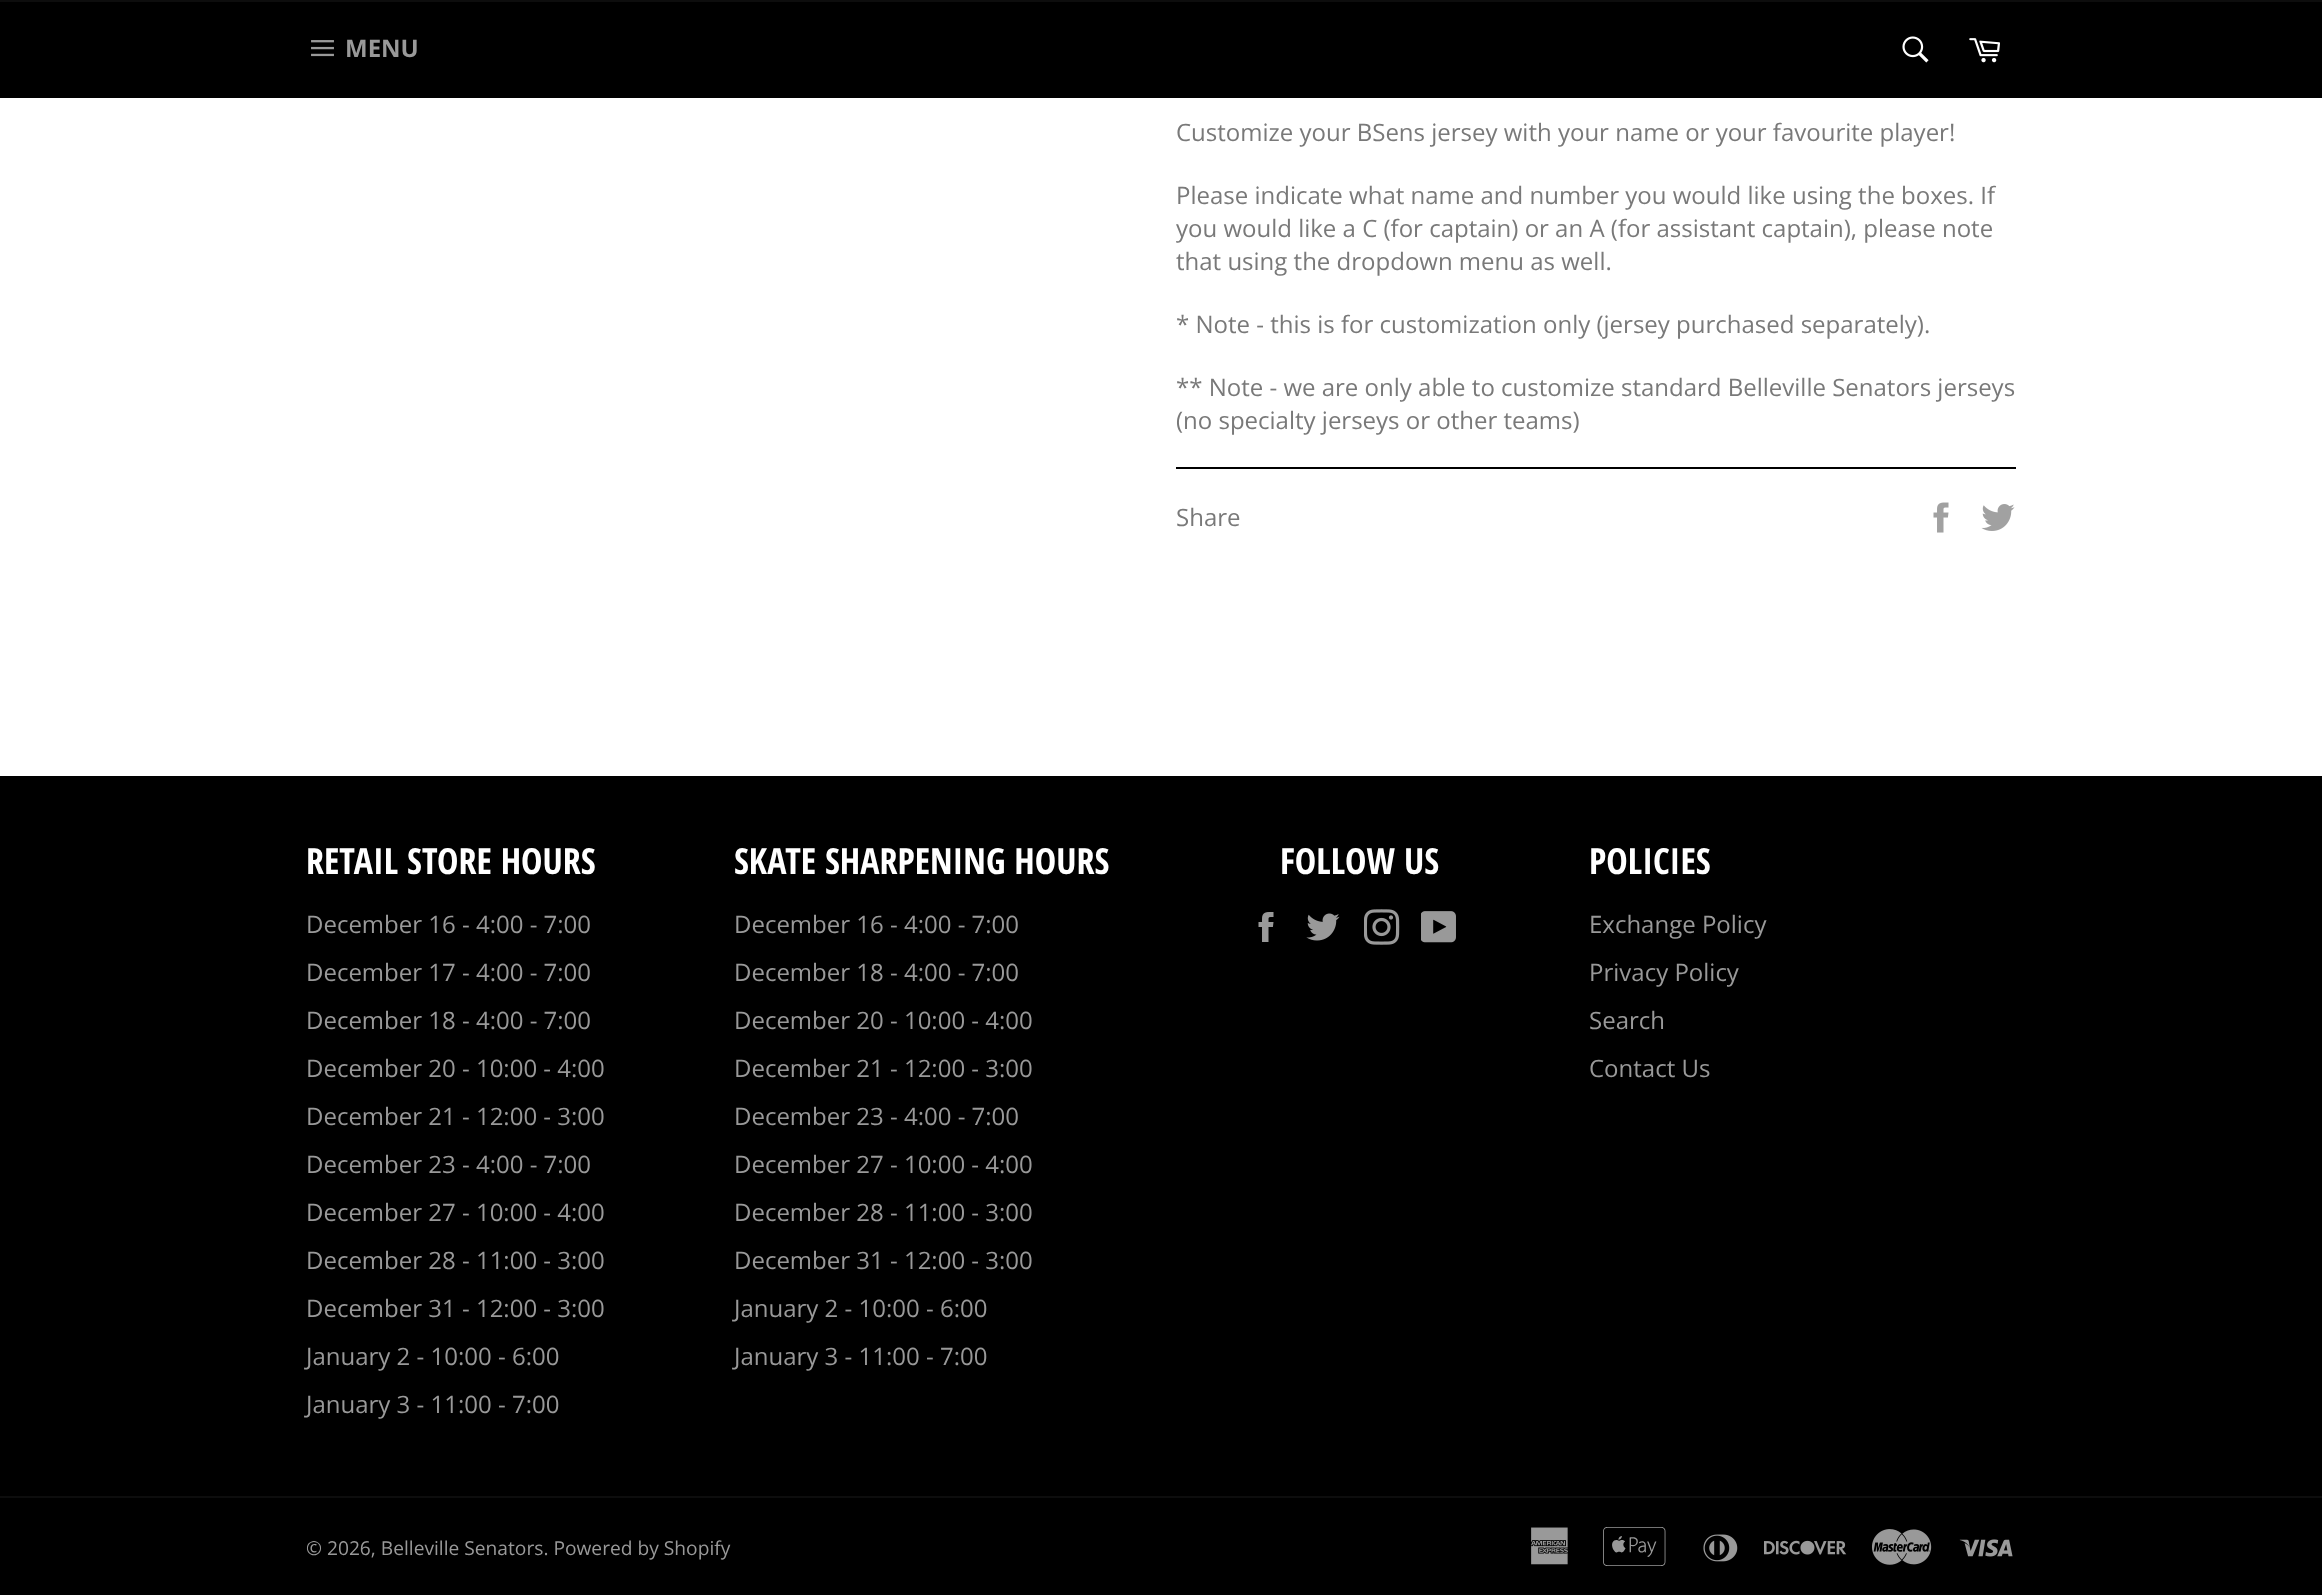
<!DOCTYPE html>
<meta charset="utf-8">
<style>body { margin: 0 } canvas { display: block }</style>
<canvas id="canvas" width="2322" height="1595"></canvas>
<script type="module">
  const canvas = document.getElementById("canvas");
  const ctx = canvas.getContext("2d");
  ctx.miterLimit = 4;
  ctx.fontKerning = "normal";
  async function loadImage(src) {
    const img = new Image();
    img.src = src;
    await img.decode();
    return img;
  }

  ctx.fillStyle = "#ffffff";
  ctx.fillRect(0, 0, 2322, 1595);
  ctx.fillStyle = "#000000";
  ctx.fillRect(0, 2, 2322, 96);
  ctx.fillStyle = "#0d0d0d";
  ctx.fillRect(0, 0, 2322, 2);
  ctx.drawImage(await loadImage("img1.png"), 311, 40, 23, 17);
  ctx.font = "bold 24px Open Sans";
  ctx.fillStyle = "#999999";
  ctx.fillText("MENU", 345, 57);
  ctx.drawImage(await loadImage("img2.png"), 1902, 36, 27, 27);
  ctx.drawImage(await loadImage("img3.png"), 1969, 38, 31, 25);
  ctx.font = "24px Open Sans";
  ctx.fillStyle = "#797979";
  ctx.fillText("Customize your BSens jersey with your name or your favourite player!", 1176, 141);
  ctx.fillText("Please indicate what name and number you would like using the boxes. If", 1176, 204);
  ctx.fillText("you would like a C (for captain) or an A (for assistant captain), please note", 1176, 237);
  ctx.fillText("that using the dropdown menu as well.", 1176, 270);
  ctx.fillText("* Note - this is for customization only (jersey purchased separately).", 1176, 333);
  ctx.fillText("** Note - we are only able to customize standard Belleville Senators jerseys", 1176, 396);
  ctx.fillText("(no specialty jerseys or other teams)", 1176, 429);
  ctx.fillStyle = "#000000";
  ctx.fillRect(1176, 467, 840, 2);
  ctx.fillStyle = "#797979";
  ctx.fillText("Share", 1176, 526);
  ctx.drawImage(await loadImage("img4.png"), 1933, 502, 16, 31);
  ctx.drawImage(await loadImage("img5.png"), 1981, 504, 34, 27);
  ctx.fillStyle = "#000000";
  ctx.fillRect(0, 776, 2322, 819);
  ctx.font = "bold 36px Open Sans Condensed";
  ctx.fillStyle = "#ffffff";
  ctx.fillText("RETAIL STORE HOURS", 306, 874);
  ctx.font = "24px Open Sans";
  ctx.fillStyle = "#999999";
  ctx.fillText("December 16 - 4:00 - 7:00", 306, 933);
  ctx.fillText("December 17 - 4:00 - 7:00", 306, 981);
  ctx.fillText("December 18 - 4:00 - 7:00", 306, 1029);
  ctx.fillText("December 20 - 10:00 - 4:00", 306, 1077);
  ctx.fillText("December 21 - 12:00 - 3:00", 306, 1125);
  ctx.fillText("December 23 - 4:00 - 7:00", 306, 1173);
  ctx.fillText("December 27 - 10:00 - 4:00", 306, 1221);
  ctx.fillText("December 28 - 11:00 - 3:00", 306, 1269);
  ctx.fillText("December 31 - 12:00 - 3:00", 306, 1317);
  ctx.fillText("January 2 - 10:00 - 6:00", 306, 1365);
  ctx.fillText("January 3 - 11:00 - 7:00", 306, 1413);
  ctx.font = "bold 36px Open Sans Condensed";
  ctx.fillStyle = "#ffffff";
  ctx.fillText("SKATE SHARPENING HOURS", 734, 874);
  ctx.font = "24px Open Sans";
  ctx.fillStyle = "#999999";
  ctx.fillText("December 16 - 4:00 - 7:00", 734, 933);
  ctx.fillText("December 18 - 4:00 - 7:00", 734, 981);
  ctx.fillText("December 20 - 10:00 - 4:00", 734, 1029);
  ctx.fillText("December 21 - 12:00 - 3:00", 734, 1077);
  ctx.fillText("December 23 - 4:00 - 7:00", 734, 1125);
  ctx.fillText("December 27 - 10:00 - 4:00", 734, 1173);
  ctx.fillText("December 28 - 11:00 - 3:00", 734, 1221);
  ctx.fillText("December 31 - 12:00 - 3:00", 734, 1269);
  ctx.fillText("January 2 - 10:00 - 6:00", 734, 1317);
  ctx.fillText("January 3 - 11:00 - 7:00", 734, 1365);
  ctx.font = "bold 36px Open Sans Condensed";
  ctx.fillStyle = "#ffffff";
  ctx.fillText("FOLLOW US", 1280, 874);
  ctx.drawImage(await loadImage("img6.png"), 1258, 912, 16, 30);
  ctx.drawImage(await loadImage("img7.png"), 1306, 913, 34, 28);
  ctx.drawImage(await loadImage("img8.png"), 1364, 909, 36, 36);
  ctx.drawImage(await loadImage("img9.png"), 1421, 911, 35, 32);
  ctx.fillText("POLICIES", 1589, 874);
  ctx.font = "24px Open Sans";
  ctx.fillStyle = "#999999";
  ctx.fillText("Exchange Policy", 1589, 933);
  ctx.fillText("Privacy Policy", 1589, 981);
  ctx.fillText("Search", 1589, 1029);
  ctx.fillText("Contact Us", 1589, 1077);
  ctx.fillStyle = "#0d0d0d";
  ctx.fillRect(0, 1496, 2322, 2);
  ctx.font = "19.2px Open Sans";
  ctx.fillStyle = "#999999";
  ctx.fillText("© 2026, Belleville Senators. Powered by Shopify", 306, 1555);
  ctx.drawImage(await loadImage("img10.png"), 1531, 1527, 37, 38);
  ctx.drawImage(await loadImage("img11.png"), 1603, 1527, 63, 39);
  ctx.drawImage(await loadImage("img12.png"), 1703, 1534, 35, 28);
  ctx.drawImage(await loadImage("img13.png"), 1764, 1540, 83, 15);
  ctx.drawImage(await loadImage("img14.png"), 1872, 1529, 60, 36);
  ctx.drawImage(await loadImage("img15.png"), 1959, 1539, 54, 18);
</script>
